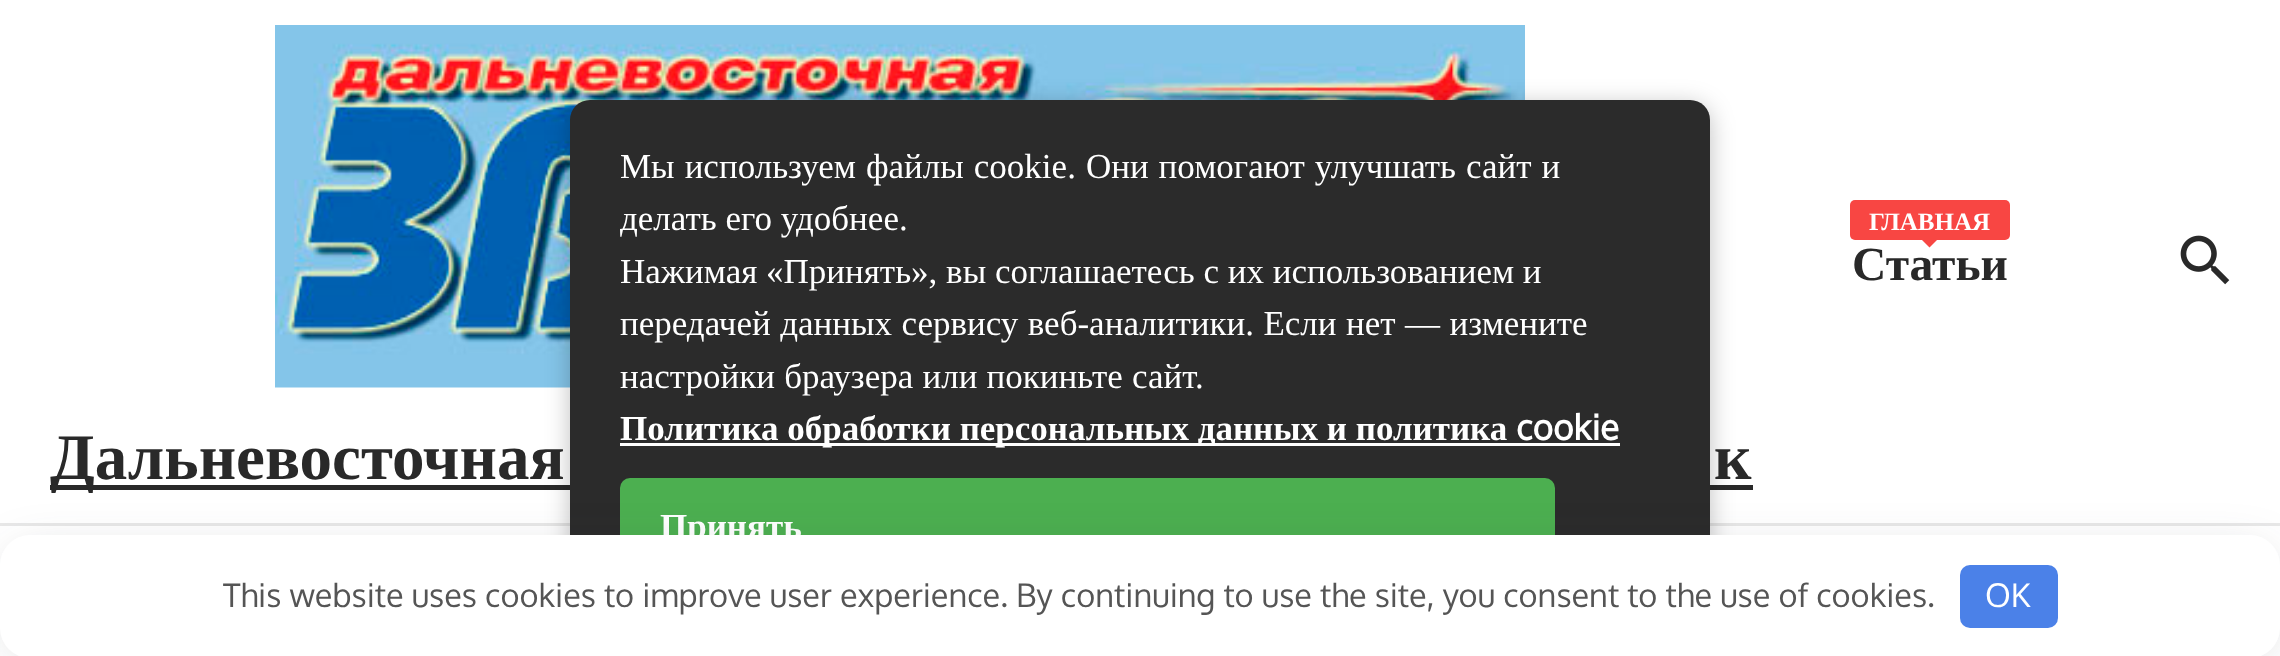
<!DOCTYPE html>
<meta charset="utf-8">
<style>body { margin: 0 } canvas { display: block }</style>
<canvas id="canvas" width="2280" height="656"></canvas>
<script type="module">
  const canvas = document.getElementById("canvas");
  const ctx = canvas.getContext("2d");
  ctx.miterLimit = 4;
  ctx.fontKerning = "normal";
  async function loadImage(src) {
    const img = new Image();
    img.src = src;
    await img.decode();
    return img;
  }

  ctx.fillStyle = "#ffffff";
  ctx.fillRect(0, 0, 2280, 656);
  ctx.fillStyle = "#e8e8e8";
  ctx.fillRect(0, 523, 2280, 3);
  ctx.drawImage(await loadImage("img1.png"), 275, 25, 1250, 363);
  ctx.fillStyle = "#292929";
  ctx.fillRect(50, 485, 1703, 5);
  ctx.fillStyle = "rgba(0, 0, 0, 0.25)";
  ctx.filter = "blur(12.5px)";
  ctx.beginPath();
  ctx.roundRect(570, 105, 1140, 508, 20);
  ctx.fill();
  ctx.filter = "none";
  ctx.fillStyle = "#2b2b2b";
  ctx.beginPath();
  ctx.roundRect(570, 100, 1140, 508, 20);
  ctx.fill();
  ctx.wordSpacing = "1.25px";
  ctx.font = "35px Liberation Serif";
  ctx.fillStyle = "#ffffff";
  ctx.fillText("Мы используем файлы cookie. Они помогают улучшать сайт и", 620, 178);
  ctx.wordSpacing = "0px";
  ctx.fillText("делать его удобнее.", 620, 230);
  ctx.fillText("Нажимая «Принять», вы соглашаетесь с их использованием и", 620, 283);
  ctx.wordSpacing = "0.75px";
  ctx.fillText("передачей данных сервису веб-аналитики. Если нет — измените", 620, 335);
  ctx.wordSpacing = "0.5px";
  ctx.fillText("настройки браузера или покиньте сайт.", 620, 388);
  ctx.fillStyle = "#fefefe";
  ctx.fillRect(620, 443, 1000, 3);
  ctx.wordSpacing = "0px";
  ctx.font = "bold 35px Liberation Serif";
  ctx.fillStyle = "#ffffff";
  ctx.fillText("Политика обработки персональных данных и политика", 620, 440);
  ctx.font = "bold 35px Oxygen";
  ctx.fillText("cookie", 1516, 440);
  ctx.fillStyle = "#4caf50";
  ctx.beginPath();
  ctx.roundRect(620, 478, 935, 92, 10);
  ctx.fill();
  ctx.font = "bold 35px Liberation Serif";
  ctx.fillStyle = "#ffffff";
  ctx.fillText("Принять", 660, 538);
  ctx.fillStyle = "#f84643";
  ctx.beginPath();
  ctx.roundRect(1850, 200, 160, 40, 5);
  ctx.fill();
  ctx.font = "bold 25px Liberation Serif";
  ctx.fillStyle = "#ffffff";
  ctx.fillText("ГЛАВНАЯ", 1869, 230);
  ctx.fillStyle = "#f84643";
  ctx.beginPath();
  ctx.moveTo(1922, 240);
  ctx.lineTo(1937, 240);
  ctx.lineTo(1929.5, 247.5);
  ctx.closePath();
  ctx.fill();
  ctx.font = "bold 47.5px Liberation Serif";
  ctx.fillStyle = "#292929";
  ctx.fillText("Статьи", 1852, 280);
  ctx.wordSpacing = "-1px";
  ctx.font = "bold 65px Liberation Serif";
  ctx.fillText("Дальневосточная", 50, 479);
  ctx.fillText("к", 1714, 479);
  ctx.drawImage(await loadImage("img2.png"), 2180, 235, 50, 50);
  ctx.fillStyle = "rgba(41, 44, 56, 0.2)";
  ctx.filter = "blur(25px)";
  ctx.beginPath();
  ctx.roundRect(13, 555, 2255, 98, 18);
  ctx.fill();
  ctx.filter = "none";
  ctx.fillStyle = "#ffffff";
  ctx.beginPath();
  ctx.roundRect(0, 535, 2280, 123, 30);
  ctx.fill();
  ctx.wordSpacing = "0px";
  ctx.font = "32.5px Oxygen";
  ctx.fillStyle = "#555555";
  ctx.fillText("This website uses cookies to improve user experience. By continuing to use the site, you consent to the use of cookies.", 223, 607);
  ctx.fillStyle = "#4b81e8";
  ctx.beginPath();
  ctx.roundRect(1960, 565, 98, 63, 10);
  ctx.fill();
  ctx.fillStyle = "#ffffff";
  ctx.fillText("OK", 1985, 607);
</script>
